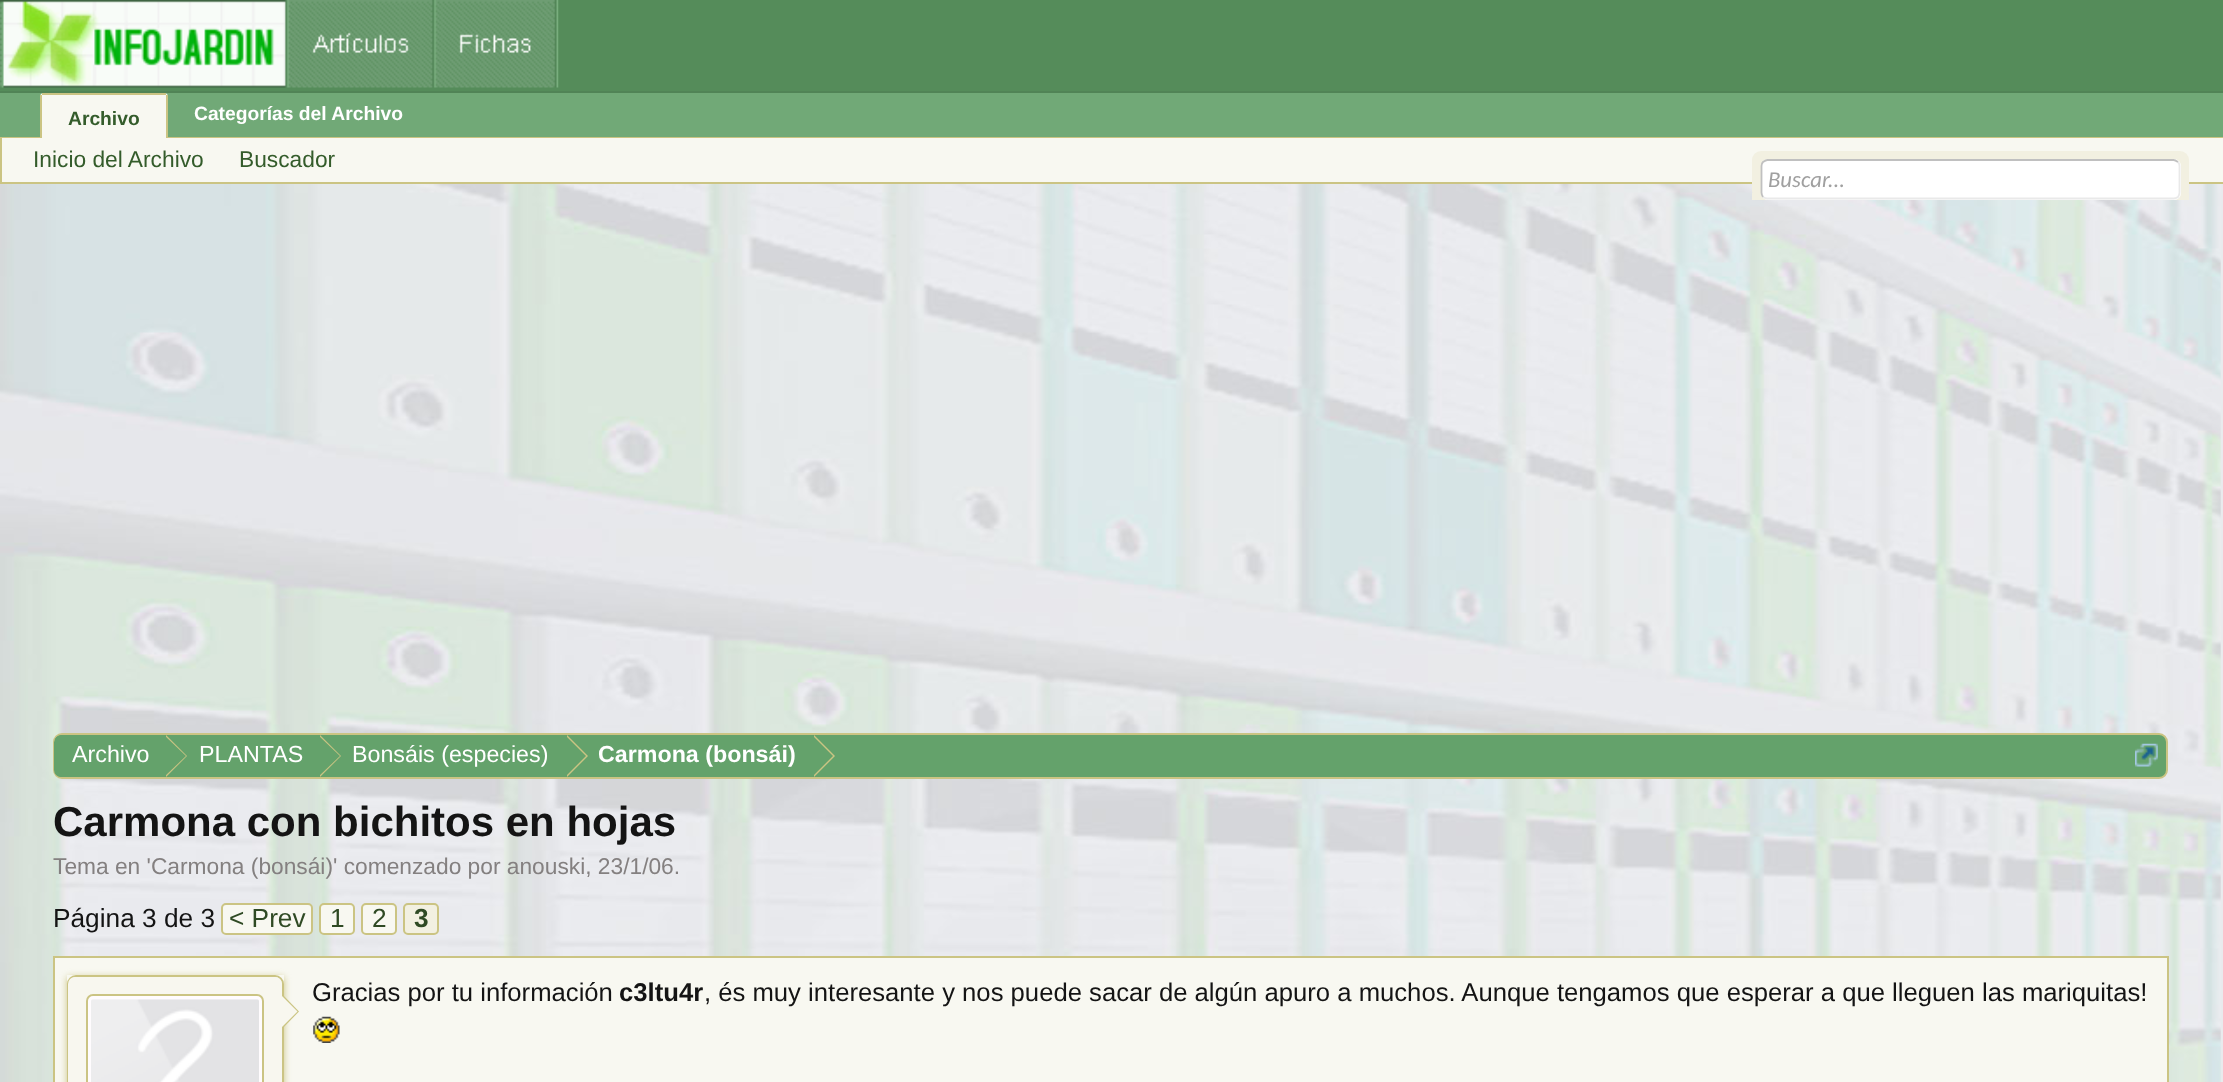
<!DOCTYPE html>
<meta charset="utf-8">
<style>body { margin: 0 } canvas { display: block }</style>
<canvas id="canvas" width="2223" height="1082"></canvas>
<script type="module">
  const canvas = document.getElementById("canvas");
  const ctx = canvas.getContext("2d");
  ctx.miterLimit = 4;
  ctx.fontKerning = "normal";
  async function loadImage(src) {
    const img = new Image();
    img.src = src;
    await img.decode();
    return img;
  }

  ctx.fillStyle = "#e9eaed";
  ctx.fillRect(0, 0, 2223, 1082);
  ctx.fillStyle = "#558c5a";
  ctx.fillRect(0, 0, 2223, 91);
  ctx.drawImage(await loadImage("img1.png"), 0, 0, 559, 88);
  ctx.fillStyle = "#71a977";
  ctx.fillRect(0, 93, 2223, 44);
  ctx.fillStyle = "#518456";
  ctx.fillRect(0, 91, 2223, 2);
  ctx.fillStyle = "#cbc483";
  ctx.fillRect(0, 137, 2223, 1);
  ctx.font = "bold 19.25px Liberation Sans";
  ctx.fillStyle = "#ffffff";
  ctx.fillText("Categorías del Archivo", 194, 120);
  ctx.fillStyle = "#f8f8f1";
  ctx.beginPath();
  ctx.roundRect(40, 93, 128, 49, [4, 4, 0, 0]);
  ctx.fill();
  ctx.fillStyle = "#cbc483";
  ctx.fillRect(42, 93, 124, 2);
  ctx.fillRect(166, 95, 2, 47);
  ctx.fillRect(40, 95, 2, 47);
  ctx.fillStyle = "#345c2b";
  ctx.fillText("Archivo", 68, 125);
  ctx.fillStyle = "#f8f8f1";
  ctx.fillRect(2, 138, 2221, 44);
  ctx.fillStyle = "#cbc483";
  ctx.fillRect(0, 182, 2223, 2);
  ctx.fillRect(0, 138, 2, 46);
  ctx.font = "22.75px Liberation Sans";
  ctx.fillStyle = "#345c2b";
  ctx.fillText("Inicio del Archivo", 33, 167);
  ctx.fillText("Buscador", 239, 167);
  ctx.drawImage(await loadImage("img2.png"), 0, 184, 2221, 898);
  ctx.fillStyle = "#f2f0e1";
  ctx.beginPath();
  ctx.roundRect(1752, 151, 437, 49, 9);
  ctx.fill();
  ctx.fillRect(1752, 193, 437, 7);
  ctx.fillStyle = "#ffffff";
  ctx.beginPath();
  ctx.roundRect(1761, 159, 420, 41, 7);
  ctx.fill();
  ctx.beginPath();
  ctx.moveTo(2178, 162);
  ctx.bezierCurveTo(2179, 163, 2179.5, 164.5, 2179.5, 166);
  ctx.lineTo(2179.5, 192.5);
  ctx.bezierCurveTo(2179.5, 194, 2179, 195.5, 2178, 197);
  ctx.bezierCurveTo(2176.5, 198, 2175, 198.5, 2173.5, 198.5);
  ctx.lineTo(1767.5, 198.5);
  ctx.bezierCurveTo(1766, 198.5, 1764.5, 198, 1763, 197);
  ctx.strokeStyle = "#e9e9e9";
  ctx.lineWidth = 1.8;
  ctx.stroke();
  ctx.beginPath();
  ctx.moveTo(1763, 197);
  ctx.bezierCurveTo(1762, 195.5, 1761.5, 194, 1761.5, 192.5);
  ctx.lineTo(1761.5, 166);
  ctx.bezierCurveTo(1761.5, 164.5, 1762, 163, 1763, 162);
  ctx.bezierCurveTo(1764.5, 161, 1766, 160, 1767.5, 160);
  ctx.lineTo(2173.5, 160);
  ctx.bezierCurveTo(2175, 160, 2176.5, 161, 2178, 162);
  ctx.strokeStyle = "#c0c0c0";
  ctx.stroke();
  ctx.font = "italic 22.75px Carlito";
  ctx.fillStyle = "#a0a0a0";
  ctx.fillText("Buscar...", 1768, 187);
  ctx.fillStyle = "#64a26b";
  ctx.beginPath();
  ctx.roundRect(54, 734, 2113, 44, 8);
  ctx.fill();
  ctx.strokeStyle = "#cbc483";
  ctx.lineWidth = 2;
  ctx.stroke();
  ctx.save();
  ctx.beginPath();
  ctx.roundRect(54, 735, 2113, 42, 7);
  ctx.clip();
  ctx.beginPath();
  ctx.roundRect(54, 735, 112, 44, [7, 0, 0, 7]);
  ctx.fill();
  ctx.restore();
  ctx.font = "23.25px Liberation Sans";
  ctx.fillStyle = "#ffffff";
  ctx.fillText("Archivo", 72, 762);
  ctx.fillStyle = "#cbc483";
  ctx.beginPath();
  ctx.moveTo(166, 777);
  ctx.lineTo(166, 735);
  ctx.lineTo(187, 756);
  ctx.closePath();
  ctx.fill();
  ctx.fillStyle = "#64a26b";
  ctx.beginPath();
  ctx.moveTo(164, 777);
  ctx.lineTo(164, 735);
  ctx.lineTo(186, 756);
  ctx.closePath();
  ctx.fill();
  ctx.fillStyle = "#ffffff";
  ctx.fillText("PLANTAS", 199, 762);
  ctx.fillStyle = "#cbc483";
  ctx.beginPath();
  ctx.moveTo(320, 777);
  ctx.lineTo(320, 735);
  ctx.lineTo(341, 756);
  ctx.closePath();
  ctx.fill();
  ctx.fillStyle = "#64a26b";
  ctx.beginPath();
  ctx.moveTo(318, 777);
  ctx.lineTo(318, 735);
  ctx.lineTo(340, 756);
  ctx.closePath();
  ctx.fill();
  ctx.fillStyle = "#ffffff";
  ctx.fillText("Bonsáis (especies)", 352, 762);
  ctx.fillStyle = "#cbc483";
  ctx.beginPath();
  ctx.moveTo(567, 777);
  ctx.lineTo(567, 735);
  ctx.lineTo(588, 756);
  ctx.closePath();
  ctx.fill();
  ctx.fillStyle = "#64a26b";
  ctx.beginPath();
  ctx.moveTo(565, 777);
  ctx.lineTo(565, 735);
  ctx.lineTo(586, 756);
  ctx.closePath();
  ctx.fill();
  ctx.font = "bold 23.25px Liberation Sans";
  ctx.fillStyle = "#ffffff";
  ctx.fillText("Carmona (bonsái)", 598, 762);
  ctx.fillStyle = "#cbc483";
  ctx.beginPath();
  ctx.moveTo(814, 777);
  ctx.lineTo(814, 735);
  ctx.lineTo(835, 756);
  ctx.closePath();
  ctx.fill();
  ctx.fillStyle = "#64a26b";
  ctx.beginPath();
  ctx.moveTo(812, 777);
  ctx.lineTo(812, 735);
  ctx.lineTo(833, 756);
  ctx.closePath();
  ctx.fill();
  ctx.drawImage(await loadImage("img3.png"), 2135, 743, 23, 24);
  ctx.font = "bold 42px Liberation Sans";
  ctx.fillStyle = "#141414";
  ctx.fillText("Carmona con bichitos en hojas", 53, 836);
  ctx.font = "22.75px Liberation Sans";
  ctx.fillStyle = "#848080";
  ctx.fillText("Tema en 'Carmona (bonsái)' comenzado por anouski, 23/1/06.", 53, 874);
  ctx.font = "26.25px Liberation Sans";
  ctx.fillStyle = "#141414";
  ctx.fillText("Página 3 de 3", 53, 927);
  ctx.fillStyle = "#f8f8f1";
  ctx.beginPath();
  ctx.roundRect(222, 904, 90, 30, 4);
  ctx.fill();
  ctx.stroke();
  ctx.fillStyle = "#2f4a24";
  ctx.fillText("< Prev", 229, 927);
  ctx.fillStyle = "#f8f8f1";
  ctx.beginPath();
  ctx.roundRect(320, 904, 34, 30, 4);
  ctx.fill();
  ctx.stroke();
  ctx.fillStyle = "#2f4a24";
  ctx.fillText("1", 330, 927);
  ctx.fillStyle = "#f8f8f1";
  ctx.beginPath();
  ctx.roundRect(362, 904, 34, 30, 4);
  ctx.fill();
  ctx.stroke();
  ctx.fillStyle = "#2f4a24";
  ctx.fillText("2", 372, 927);
  ctx.fillStyle = "#f2f0e1";
  ctx.beginPath();
  ctx.roundRect(404, 904, 34, 30, 4);
  ctx.fill();
  ctx.stroke();
  ctx.font = "bold 26.25px Liberation Sans";
  ctx.fillStyle = "#2f4a24";
  ctx.fillText("3", 414, 927);
  ctx.fillStyle = "#f8f8f1";
  ctx.fillRect(55, 958, 2112, 124);
  ctx.fillStyle = "#cbc483";
  ctx.fillRect(53, 956, 2115, 2);
  ctx.fillRect(2167, 956, 2, 126);
  ctx.fillRect(53, 956, 2, 126);
  ctx.save();
  ctx.beginPath();
  ctx.moveTo(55, 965);
  ctx.lineTo(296, 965);
  ctx.lineTo(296, 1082);
  ctx.lineTo(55, 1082);
  ctx.closePath();
  ctx.moveTo(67, 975);
  ctx.lineTo(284, 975);
  ctx.lineTo(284, 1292);
  ctx.lineTo(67, 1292);
  ctx.closePath();
  ctx.clip("evenodd");
  ctx.filter = "blur(3.5px)";
  ctx.beginPath();
  ctx.rect(67, 977, 217, 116);
  ctx.fill();
  ctx.filter = "none";
  ctx.restore();
  ctx.beginPath();
  ctx.roundRect(68, 976, 215, 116, 8);
  ctx.stroke();
  ctx.fillStyle = "#f8f7ef";
  ctx.beginPath();
  ctx.roundRect(68, 977, 214, 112, 7);
  ctx.fill();
  ctx.fillStyle = "#fffcfe";
  ctx.beginPath();
  ctx.roundRect(87, 995, 176, 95, 6);
  ctx.fill();
  ctx.stroke();
  ctx.drawImage(await loadImage("img4.png"), 91, 999, 168, 83);
  ctx.fillStyle = "#cbc483";
  ctx.beginPath();
  ctx.moveTo(282, 1029);
  ctx.lineTo(282, 994);
  ctx.lineTo(299, 1011.5);
  ctx.closePath();
  ctx.fill();
  ctx.fillStyle = "#f8f7ef";
  ctx.beginPath();
  ctx.moveTo(280, 1029);
  ctx.lineTo(280, 994);
  ctx.lineTo(297.5, 1011.5);
  ctx.closePath();
  ctx.fill();
  ctx.font = "25.67px Liberation Sans";
  ctx.fillStyle = "#141414";
  ctx.fillText("Gracias por tu información", 312, 1001);
  ctx.font = "bold 25.67px Liberation Sans";
  ctx.fillText("c3ltu4r", 619, 1001);
  ctx.font = "25.67px Liberation Sans";
  ctx.fillText(", és muy interesante y nos puede sacar de algún apuro a muchos. Aunque tengamos que esperar a que lleguen las mariquitas!", 704, 1001);
  ctx.drawImage(await loadImage("img5.png"), 313, 1016, 27, 27);
</script>
